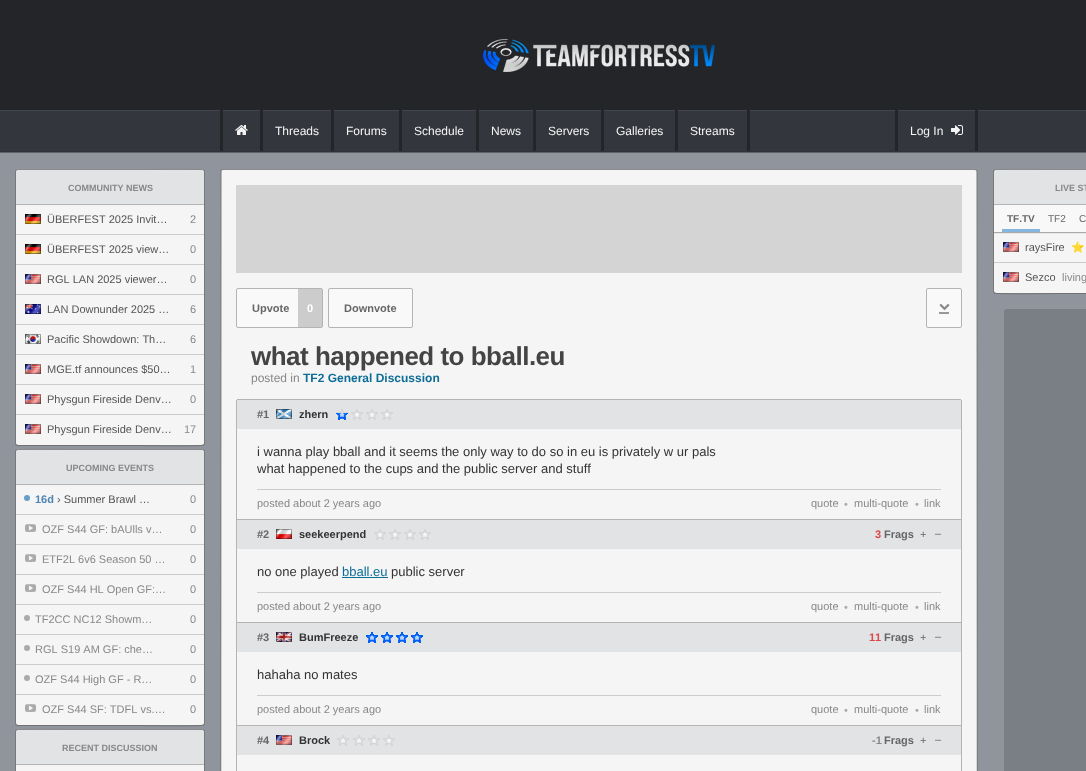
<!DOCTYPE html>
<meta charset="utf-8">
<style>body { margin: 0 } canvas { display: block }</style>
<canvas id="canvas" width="1086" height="771"></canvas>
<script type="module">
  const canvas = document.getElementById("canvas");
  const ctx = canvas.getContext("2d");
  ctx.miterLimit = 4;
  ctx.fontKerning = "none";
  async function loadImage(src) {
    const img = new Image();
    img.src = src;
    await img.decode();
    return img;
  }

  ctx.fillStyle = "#90959d";
  ctx.fillRect(0, 0, 1086, 771);
  ctx.fillStyle = "rgba(0, 0, 0, 0.35)";
  ctx.filter = "blur(0.5px)";
  ctx.beginPath();
  ctx.rect(-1, -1, 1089, 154);
  ctx.fill();
  ctx.filter = "none";
  ctx.fillStyle = "#232529";
  ctx.fillRect(0, 0, 1086, 110);
  ctx.fillStyle = "#2f3237";
  ctx.fillRect(0, 151, 1086, 1);
  ctx.drawImage(await loadImage("img1.png"), 483, 39, 232, 33);
  ctx.fillStyle = "#34363d";
  ctx.fillRect(0, 111, 1086, 40);
  ctx.fillStyle = "#42464d";
  ctx.fillRect(0, 110, 1086, 1);
  ctx.fillStyle = "#232529";
  ctx.fillRect(220, 110, 3, 41);
  ctx.drawImage(await loadImage("img2.png"), 235, 125, 13, 10);
  ctx.fillRect(260, 110, 3, 41);
  ctx.font = "12px Liberation Sans";
  ctx.fillStyle = "#f4f4f4";
  ctx.fillText("Threads", 275, 135);
  ctx.fillStyle = "#232529";
  ctx.fillRect(331, 110, 3, 41);
  ctx.fillStyle = "#f4f4f4";
  ctx.fillText("Forums", 346, 135);
  ctx.fillStyle = "#232529";
  ctx.fillRect(399, 110, 3, 41);
  ctx.fillStyle = "#f4f4f4";
  ctx.fillText("Schedule", 414, 135);
  ctx.fillStyle = "#232529";
  ctx.fillRect(476, 110, 3, 41);
  ctx.fillStyle = "#f4f4f4";
  ctx.fillText("News", 491, 135);
  ctx.fillStyle = "#232529";
  ctx.fillRect(533, 110, 3, 41);
  ctx.fillStyle = "#f4f4f4";
  ctx.fillText("Servers", 548, 135);
  ctx.fillStyle = "#232529";
  ctx.fillRect(601, 110, 3, 41);
  ctx.fillStyle = "#f4f4f4";
  ctx.fillText("Galleries", 616, 135);
  ctx.fillStyle = "#232529";
  ctx.fillRect(675, 110, 3, 41);
  ctx.fillStyle = "#f4f4f4";
  ctx.fillText("Streams", 690, 135);
  ctx.fillStyle = "#232529";
  ctx.fillRect(747, 110, 3, 41);
  ctx.fillRect(895, 110, 3, 41);
  ctx.fillStyle = "#f4f4f4";
  ctx.fillText("Log In", 910, 135);
  ctx.drawImage(await loadImage("img3.png"), 951, 125, 12, 10);
  ctx.fillStyle = "#232529";
  ctx.fillRect(975, 110, 3, 41);
  ctx.fillStyle = "#f5f5f5";
  ctx.beginPath();
  ctx.roundRect(16, 170, 188, 275, 2);
  ctx.fill();
  ctx.beginPath();
  ctx.moveTo(16, 170);
  ctx.lineTo(18, 169.5);
  ctx.lineTo(140.5, 169.5);
  ctx.bezierCurveTo(145, 169.5, 202, 168.5, 204, 170);
  ctx.strokeStyle = "#8a8a8a";
  ctx.stroke();
  ctx.beginPath();
  ctx.moveTo(204, 170);
  ctx.lineTo(204.5, 172);
  ctx.lineTo(204.5, 444);
  ctx.lineTo(204, 445);
  ctx.strokeStyle = "#787878";
  ctx.stroke();
  ctx.beginPath();
  ctx.moveTo(204, 445);
  ctx.bezierCurveTo(202, 446.5, 145, 445.5, 140.5, 445.5);
  ctx.lineTo(18, 445.5);
  ctx.lineTo(16, 445);
  ctx.strokeStyle = "#717171";
  ctx.stroke();
  ctx.beginPath();
  ctx.moveTo(16, 445);
  ctx.lineTo(15.5, 444);
  ctx.lineTo(15.5, 352.5);
  ctx.lineTo(15.5, 172);
  ctx.lineTo(16, 170);
  ctx.strokeStyle = "#787878";
  ctx.stroke();
  ctx.fillStyle = "#e1e3e5";
  ctx.beginPath();
  ctx.roundRect(16, 170, 188, 35, [3, 3, 0, 0]);
  ctx.fill();
  ctx.fillStyle = "#b4b4b4";
  ctx.fillRect(16, 204, 188, 1);
  ctx.font = "bold 9px Liberation Sans";
  ctx.fillStyle = "#888888";
  ctx.fillText("COMMUNITY NEWS", 68, 191);
  ctx.fillStyle = "#cccccc";
  ctx.fillRect(16, 234, 188, 1);
  ctx.drawImage(await loadImage("img4.png"), 25, 214, 16, 10);
  ctx.strokeStyle = "rgba(0, 0, 0, 0.35)";
  ctx.strokeRect(25.5, 214.5, 15, 9);
  ctx.font = "11px Liberation Sans";
  ctx.fillStyle = "#555555";
  ctx.fillText("ÜBERFEST 2025 Invit…", 47, 223);
  ctx.fillStyle = "#888888";
  ctx.fillText("2", 190, 223);
  ctx.fillStyle = "#cccccc";
  ctx.fillRect(16, 264, 188, 1);
  ctx.drawImage(await loadImage("img4.png"), 25, 244, 16, 10);
  ctx.strokeRect(25.5, 244.5, 15, 9);
  ctx.fillStyle = "#555555";
  ctx.fillText("ÜBERFEST 2025 view…", 47, 253);
  ctx.fillStyle = "#888888";
  ctx.fillText("0", 190, 253);
  ctx.fillStyle = "#cccccc";
  ctx.fillRect(16, 294, 188, 1);
  ctx.drawImage(await loadImage("img5.png"), 25, 274, 16, 10);
  ctx.strokeRect(25.5, 274.5, 15, 9);
  ctx.fillStyle = "#555555";
  ctx.fillText("RGL LAN 2025 viewer…", 47, 283);
  ctx.fillStyle = "#888888";
  ctx.fillText("0", 190, 283);
  ctx.fillStyle = "#cccccc";
  ctx.fillRect(16, 324, 188, 1);
  ctx.drawImage(await loadImage("img6.png"), 25, 304, 16, 10);
  ctx.strokeRect(25.5, 304.5, 15, 9);
  ctx.fillStyle = "#555555";
  ctx.fillText("LAN Downunder 2025 …", 47, 313);
  ctx.fillStyle = "#888888";
  ctx.fillText("6", 190, 313);
  ctx.fillStyle = "#cccccc";
  ctx.fillRect(16, 354, 188, 1);
  ctx.drawImage(await loadImage("img7.png"), 25, 334, 16, 10);
  ctx.strokeRect(25.5, 334.5, 15, 9);
  ctx.fillStyle = "#555555";
  ctx.fillText("Pacific Showdown: Th…", 47, 343);
  ctx.fillStyle = "#888888";
  ctx.fillText("6", 190, 343);
  ctx.fillStyle = "#cccccc";
  ctx.fillRect(16, 384, 188, 1);
  ctx.drawImage(await loadImage("img5.png"), 25, 364, 16, 10);
  ctx.strokeRect(25.5, 364.5, 15, 9);
  ctx.fillStyle = "#555555";
  ctx.fillText("MGE.tf announces $50…", 47, 373);
  ctx.fillStyle = "#888888";
  ctx.fillText("1", 190, 373);
  ctx.fillStyle = "#cccccc";
  ctx.fillRect(16, 414, 188, 1);
  ctx.drawImage(await loadImage("img5.png"), 25, 394, 16, 10);
  ctx.strokeRect(25.5, 394.5, 15, 9);
  ctx.fillStyle = "#555555";
  ctx.fillText("Physgun Fireside Denv…", 47, 403);
  ctx.fillStyle = "#888888";
  ctx.fillText("0", 190, 403);
  ctx.drawImage(await loadImage("img5.png"), 25, 424, 16, 10);
  ctx.strokeRect(25.5, 424.5, 15, 9);
  ctx.fillStyle = "#555555";
  ctx.fillText("Physgun Fireside Denv…", 47, 433);
  ctx.fillStyle = "#888888";
  ctx.fillText("17", 184, 433);
  ctx.fillStyle = "#f5f5f5";
  ctx.beginPath();
  ctx.roundRect(16, 450, 188, 275, 2);
  ctx.fill();
  ctx.beginPath();
  ctx.moveTo(16, 450);
  ctx.bezierCurveTo(18, 448.5, 75, 449.5, 79.5, 449.5);
  ctx.lineTo(202, 449.5);
  ctx.lineTo(204, 450);
  ctx.strokeStyle = "#8a8a8a";
  ctx.stroke();
  ctx.beginPath();
  ctx.moveTo(204, 450);
  ctx.lineTo(204.5, 451);
  ctx.lineTo(204.5, 542.5);
  ctx.lineTo(204.5, 723);
  ctx.lineTo(204, 725);
  ctx.strokeStyle = "#787878";
  ctx.stroke();
  ctx.beginPath();
  ctx.moveTo(204, 725);
  ctx.bezierCurveTo(202, 726.5, 145, 725.5, 140.5, 725.5);
  ctx.lineTo(18, 725.5);
  ctx.lineTo(16, 725);
  ctx.strokeStyle = "#717171";
  ctx.stroke();
  ctx.beginPath();
  ctx.moveTo(16, 725);
  ctx.lineTo(15.5, 723);
  ctx.lineTo(15.5, 451);
  ctx.lineTo(16, 450);
  ctx.strokeStyle = "#787878";
  ctx.stroke();
  ctx.fillStyle = "#e1e3e5";
  ctx.beginPath();
  ctx.roundRect(16, 450, 188, 35, [3, 3, 0, 0]);
  ctx.fill();
  ctx.fillStyle = "#b4b4b4";
  ctx.fillRect(16, 484, 188, 1);
  ctx.font = "bold 9px Liberation Sans";
  ctx.fillStyle = "#888888";
  ctx.fillText("UPCOMING EVENTS", 66, 471);
  ctx.fillStyle = "#cccccc";
  ctx.fillRect(16, 514, 188, 1);
  ctx.fillStyle = "#669ecc";
  ctx.beginPath();
  ctx.arc(27, 498, 3, 0, Math.PI * 2);
  ctx.fill();
  ctx.font = "bold 11px Liberation Sans";
  ctx.fillStyle = "#4d85b3";
  ctx.fillText("16d", 35, 503);
  ctx.font = "11px Liberation Sans";
  ctx.fillStyle = "#555555";
  ctx.fillText("› Summer Brawl …", 57, 503);
  ctx.fillStyle = "#888888";
  ctx.fillText("0", 190, 503);
  ctx.fillStyle = "#cccccc";
  ctx.fillRect(16, 544, 188, 1);
  ctx.drawImage(await loadImage("img8.png"), 25, 524, 11, 8);
  ctx.fillStyle = "#888888";
  ctx.fillText("OZF S44 GF: bAUlls v…", 42, 533);
  ctx.fillText("0", 190, 533);
  ctx.fillStyle = "#cccccc";
  ctx.fillRect(16, 574, 188, 1);
  ctx.drawImage(await loadImage("img8.png"), 25, 554, 11, 8);
  ctx.fillStyle = "#888888";
  ctx.fillText("ETF2L 6v6 Season 50 …", 42, 563);
  ctx.fillText("0", 190, 563);
  ctx.fillStyle = "#cccccc";
  ctx.fillRect(16, 604, 188, 1);
  ctx.drawImage(await loadImage("img8.png"), 25, 584, 11, 8);
  ctx.fillStyle = "#888888";
  ctx.fillText("OZF S44 HL Open GF:…", 42, 593);
  ctx.fillText("0", 190, 593);
  ctx.fillStyle = "#cccccc";
  ctx.fillRect(16, 634, 188, 1);
  ctx.fillStyle = "#aaaaaa";
  ctx.beginPath();
  ctx.arc(27, 618, 3, 0, Math.PI * 2);
  ctx.fill();
  ctx.fillStyle = "#888888";
  ctx.fillText("TF2CC NC12 Showm…", 35, 623);
  ctx.fillText("0", 190, 623);
  ctx.fillStyle = "#cccccc";
  ctx.fillRect(16, 664, 188, 1);
  ctx.fillStyle = "#aaaaaa";
  ctx.beginPath();
  ctx.arc(27, 648, 3, 0, Math.PI * 2);
  ctx.fill();
  ctx.fillStyle = "#888888";
  ctx.fillText("RGL S19 AM GF: che…", 35, 653);
  ctx.fillText("0", 190, 653);
  ctx.fillStyle = "#cccccc";
  ctx.fillRect(16, 694, 188, 1);
  ctx.fillStyle = "#aaaaaa";
  ctx.beginPath();
  ctx.arc(27, 678, 3, 0, Math.PI * 2);
  ctx.fill();
  ctx.fillStyle = "#888888";
  ctx.fillText("OZF S44 High GF - R…", 35, 683);
  ctx.fillText("0", 190, 683);
  ctx.drawImage(await loadImage("img8.png"), 25, 704, 11, 8);
  ctx.fillText("OZF S44 SF: TDFL vs.…", 42, 713);
  ctx.fillText("0", 190, 713);
  ctx.fillStyle = "#f5f5f5";
  ctx.beginPath();
  ctx.roundRect(16, 730, 188, 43, 2);
  ctx.fill();
  ctx.beginPath();
  ctx.moveTo(16, 730);
  ctx.bezierCurveTo(18, 728.5, 75, 729.5, 79.5, 729.5);
  ctx.lineTo(202, 729.5);
  ctx.lineTo(204, 730);
  ctx.strokeStyle = "#8a8a8a";
  ctx.stroke();
  ctx.beginPath();
  ctx.moveTo(204, 730);
  ctx.lineTo(204.5, 732);
  ctx.lineTo(204.5, 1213);
  ctx.lineTo(204, 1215);
  ctx.strokeStyle = "#787878";
  ctx.stroke();
  ctx.beginPath();
  ctx.moveTo(16, 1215);
  ctx.lineTo(15.5, 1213);
  ctx.lineTo(15.5, 732);
  ctx.lineTo(16, 730);
  ctx.stroke();
  ctx.fillStyle = "#e1e3e5";
  ctx.beginPath();
  ctx.roundRect(16, 730, 188, 35, [3, 3, 0, 0]);
  ctx.fill();
  ctx.fillStyle = "#b4b4b4";
  ctx.fillRect(16, 764, 188, 1);
  ctx.font = "bold 9px Liberation Sans";
  ctx.fillStyle = "#888888";
  ctx.fillText("RECENT DISCUSSION", 62, 751);
  ctx.fillStyle = "#f5f5f5";
  ctx.beginPath();
  ctx.roundRect(994, 170, 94, 123, 2);
  ctx.fill();
  ctx.beginPath();
  ctx.moveTo(994, 170);
  ctx.bezierCurveTo(996, 168.5, 1053, 169.5, 1057.5, 169.5);
  ctx.lineTo(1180, 169.5);
  ctx.lineTo(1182, 170);
  ctx.strokeStyle = "#8a8a8a";
  ctx.stroke();
  ctx.beginPath();
  ctx.moveTo(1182, 293);
  ctx.lineTo(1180, 293.5);
  ctx.lineTo(1057.5, 293.5);
  ctx.bezierCurveTo(1053, 293.5, 996, 294.5, 994, 293);
  ctx.strokeStyle = "#717171";
  ctx.stroke();
  ctx.beginPath();
  ctx.moveTo(994, 293);
  ctx.lineTo(993.5, 291);
  ctx.lineTo(993.5, 192);
  ctx.lineTo(993.5, 172);
  ctx.lineTo(994, 170);
  ctx.strokeStyle = "#787878";
  ctx.stroke();
  ctx.fillStyle = "rgba(0, 0, 0, 0.05)";
  ctx.filter = "blur(0.5px)";
  ctx.beginPath();
  ctx.rect(994, 206, 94, 28);
  ctx.fill();
  ctx.filter = "none";
  ctx.fillStyle = "#e1e3e5";
  ctx.beginPath();
  ctx.moveTo(997, 170);
  ctx.lineTo(1086, 170);
  ctx.bezierCurveTo(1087.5, 170, 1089, 171.5, 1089, 173);
  ctx.lineTo(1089, 205);
  ctx.lineTo(994, 205);
  ctx.lineTo(994, 173);
  ctx.bezierCurveTo(994, 171.5, 995.5, 170, 997, 170);
  ctx.closePath();
  ctx.fill();
  ctx.fillStyle = "#b4b4b4";
  ctx.fillRect(994, 204, 92, 1);
  ctx.fillStyle = "#888888";
  ctx.fillText("LIVE ST", 1055, 191);
  ctx.fillStyle = "#f8f8f8";
  ctx.fillRect(994, 205, 92, 27);
  ctx.fillStyle = "#aaaaaa";
  ctx.fillRect(994, 232, 92, 1);
  ctx.fillStyle = "#85b6e0";
  ctx.fillRect(1002, 229, 38, 3);
  ctx.font = "bold 10px Liberation Sans";
  ctx.fillStyle = "#666666";
  ctx.fillText("TF.TV", 1007, 222);
  ctx.font = "10px Liberation Sans";
  ctx.fillText("TF2", 1048, 222);
  ctx.fillText("C", 1079, 222);
  ctx.fillStyle = "#cccccc";
  ctx.fillRect(994, 262, 92, 1);
  ctx.drawImage(await loadImage("img5.png"), 1003, 242, 16, 10);
  ctx.strokeStyle = "rgba(0, 0, 0, 0.35)";
  ctx.strokeRect(1003.5, 242.5, 15, 9);
  ctx.font = "11px Liberation Sans";
  ctx.fillStyle = "#555555";
  ctx.fillText("raysFire", 1025, 251);
  ctx.font = "11px Noto Color Emoji";
  ctx.fillStyle = "#888888";
  ctx.fillText("⭐", 1071, 251);
  ctx.drawImage(await loadImage("img5.png"), 1003, 272, 16, 10);
  ctx.strokeRect(1003.5, 272.5, 15, 9);
  ctx.font = "11px Liberation Sans";
  ctx.fillStyle = "#555555";
  ctx.fillText("Sezco", 1025, 281);
  ctx.fillStyle = "#888888";
  ctx.fillText("living", 1062, 281);
  ctx.fillStyle = "#7a7f85";
  ctx.beginPath();
  ctx.roundRect(1004, 309, 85, 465, 3);
  ctx.fill();
  ctx.fillStyle = "#f5f5f5";
  ctx.beginPath();
  ctx.roundRect(221, 170, 756, 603, 2);
  ctx.fill();
  ctx.beginPath();
  ctx.moveTo(221, 170);
  ctx.lineTo(223, 169.5);
  ctx.lineTo(975, 169.5);
  ctx.lineTo(977, 170);
  ctx.strokeStyle = "#8a8a8a";
  ctx.stroke();
  ctx.beginPath();
  ctx.moveTo(977, 170);
  ctx.lineTo(977, 171);
  ctx.lineTo(977.5, 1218);
  ctx.lineTo(977.5, 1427);
  ctx.lineTo(977, 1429);
  ctx.strokeStyle = "#787878";
  ctx.stroke();
  ctx.beginPath();
  ctx.moveTo(221, 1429);
  ctx.lineTo(220.5, 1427);
  ctx.lineTo(221, 171);
  ctx.lineTo(221, 170);
  ctx.stroke();
  ctx.fillStyle = "#d4d4d4";
  ctx.fillRect(236, 185, 726, 88);
  ctx.fillStyle = "#f9f9f9";
  ctx.beginPath();
  ctx.roundRect(236.5, 288.5, 86, 39, 1.5);
  ctx.fill();
  ctx.strokeStyle = "#b4b4b4";
  ctx.stroke();
  ctx.font = "bold 11px Liberation Sans";
  ctx.fillStyle = "#666666";
  ctx.fillText("Upvote", 252, 312);
  ctx.fillStyle = "#cccccc";
  ctx.fillRect(298, 289, 24, 38);
  ctx.fillStyle = "#ffffff";
  ctx.fillText("0", 307, 312);
  ctx.fillStyle = "#f9f9f9";
  ctx.beginPath();
  ctx.roundRect(328.5, 288.5, 84, 39, 1.5);
  ctx.fill();
  ctx.stroke();
  ctx.fillStyle = "#666666";
  ctx.fillText("Downvote", 344, 312);
  ctx.fillStyle = "#f9f9f9";
  ctx.beginPath();
  ctx.roundRect(926.5, 288.5, 35, 39, 1.5);
  ctx.fill();
  ctx.stroke();
  ctx.fillStyle = "#999999";
  ctx.fillRect(939, 312, 10, 2);
  ctx.drawImage(await loadImage("img9.png"), 939, 304, 11, 7);
  ctx.letterSpacing = "-0.5px";
  ctx.font = "bold 26px Liberation Sans";
  ctx.fillStyle = "#444444";
  ctx.fillText("what happened to bball.eu", 251, 365);
  ctx.letterSpacing = "0px";
  ctx.font = "12px Liberation Sans";
  ctx.fillStyle = "#888888";
  ctx.fillText("posted in", 251, 382);
  ctx.font = "bold 12px Liberation Sans";
  ctx.fillStyle = "#0c6d97";
  ctx.fillText("TF2 General Discussion", 303, 382);
  ctx.fillStyle = "#b4b4b4";
  ctx.fillRect(237, 399, 724, 1);
  ctx.fillRect(961, 400, 1, 371);
  ctx.fillRect(236, 400, 1, 371);
  ctx.fillRect(237, 519, 724, 1);
  ctx.fillStyle = "#e1e3e5";
  ctx.fillRect(237, 400, 724, 29);
  ctx.font = "bold 11px Liberation Sans";
  ctx.fillStyle = "#666666";
  ctx.fillText("#1", 257, 418);
  ctx.drawImage(await loadImage("img10.png"), 276, 409, 16, 10);
  ctx.strokeStyle = "rgba(0, 0, 0, 0.35)";
  ctx.strokeRect(276.5, 409.5, 15, 9);
  ctx.fillStyle = "#333333";
  ctx.fillText("zhern", 299, 418);
  ctx.drawImage(await loadImage("img11.png"), 336, 409, 12, 11);
  ctx.drawImage(await loadImage("img12.png"), 351, 409, 12, 11);
  ctx.drawImage(await loadImage("img12.png"), 366, 409, 12, 11);
  ctx.drawImage(await loadImage("img12.png"), 381, 409, 12, 11);
  ctx.font = "13px Liberation Sans";
  ctx.fillText("i wanna play bball and it seems the only way to do so in eu is privately w ur pals", 257, 456);
  ctx.fillText("what happened to the cups and the public server and stuff", 257, 473);
  ctx.fillStyle = "#cccccc";
  ctx.fillRect(257, 489, 684, 1);
  ctx.font = "11px Liberation Sans";
  ctx.fillStyle = "#888888";
  ctx.fillText("posted about 2 years ago", 257, 507);
  ctx.fillText("quote", 811, 507);
  ctx.fillStyle = "#aaaaaa";
  ctx.fillText("•", 844, 508);
  ctx.fillStyle = "#888888";
  ctx.fillText("multi-quote", 854, 507);
  ctx.fillStyle = "#aaaaaa";
  ctx.fillText("•", 915, 508);
  ctx.fillStyle = "#888888";
  ctx.fillText("link", 924, 507);
  ctx.fillStyle = "#b4b4b4";
  ctx.fillRect(237, 622, 724, 1);
  ctx.fillStyle = "#e1e3e5";
  ctx.fillRect(237, 520, 724, 29);
  ctx.font = "bold 11px Liberation Sans";
  ctx.fillStyle = "#666666";
  ctx.fillText("#2", 257, 538);
  ctx.drawImage(await loadImage("img13.png"), 276, 529, 16, 10);
  ctx.strokeRect(276.5, 529.5, 15, 9);
  ctx.fillStyle = "#333333";
  ctx.fillText("seekeerpend", 299, 538);
  ctx.drawImage(await loadImage("img12.png"), 374, 529, 12, 11);
  ctx.drawImage(await loadImage("img12.png"), 389, 529, 12, 11);
  ctx.drawImage(await loadImage("img12.png"), 404, 529, 12, 11);
  ctx.drawImage(await loadImage("img12.png"), 419, 529, 12, 11);
  ctx.fillStyle = "#dc4749";
  ctx.fillText("3", 875, 538);
  ctx.fillStyle = "#666666";
  ctx.fillText("Frags", 884, 538);
  ctx.font = "11px Liberation Sans";
  ctx.fillText("+", 920, 538);
  ctx.fillText("–", 935, 537);
  ctx.font = "13px Liberation Sans";
  ctx.fillStyle = "#333333";
  ctx.fillText("no one played", 257, 576);
  ctx.fillStyle = "#0c6d97";
  ctx.fillText("bball.eu", 342, 576);
  ctx.fillRect(342, 577, 46, 1);
  ctx.fillStyle = "#333333";
  ctx.fillText("public server", 391, 576);
  ctx.fillStyle = "#cccccc";
  ctx.fillRect(257, 592, 684, 1);
  ctx.font = "11px Liberation Sans";
  ctx.fillStyle = "#888888";
  ctx.fillText("posted about 2 years ago", 257, 610);
  ctx.fillText("quote", 811, 610);
  ctx.fillStyle = "#aaaaaa";
  ctx.fillText("•", 844, 611);
  ctx.fillStyle = "#888888";
  ctx.fillText("multi-quote", 854, 610);
  ctx.fillStyle = "#aaaaaa";
  ctx.fillText("•", 915, 611);
  ctx.fillStyle = "#888888";
  ctx.fillText("link", 924, 610);
  ctx.fillStyle = "#b4b4b4";
  ctx.fillRect(237, 725, 724, 1);
  ctx.fillStyle = "#e1e3e5";
  ctx.fillRect(237, 623, 724, 29);
  ctx.font = "bold 11px Liberation Sans";
  ctx.fillStyle = "#666666";
  ctx.fillText("#3", 257, 641);
  ctx.drawImage(await loadImage("img14.png"), 276, 632, 16, 10);
  ctx.strokeRect(276.5, 632.5, 15, 9);
  ctx.fillStyle = "#333333";
  ctx.fillText("BumFreeze", 299, 641);
  ctx.drawImage(await loadImage("img15.png"), 366, 632, 12, 11);
  ctx.drawImage(await loadImage("img15.png"), 381, 632, 12, 11);
  ctx.drawImage(await loadImage("img15.png"), 396, 632, 12, 11);
  ctx.drawImage(await loadImage("img15.png"), 411, 632, 12, 11);
  ctx.fillStyle = "#dc4749";
  ctx.fillText("11", 869, 641);
  ctx.fillStyle = "#666666";
  ctx.fillText("Frags", 884, 641);
  ctx.font = "11px Liberation Sans";
  ctx.fillText("+", 920, 641);
  ctx.fillText("–", 935, 640);
  ctx.font = "13px Liberation Sans";
  ctx.fillStyle = "#333333";
  ctx.fillText("hahaha no mates", 257, 679);
  ctx.fillStyle = "#cccccc";
  ctx.fillRect(257, 695, 684, 1);
  ctx.font = "11px Liberation Sans";
  ctx.fillStyle = "#888888";
  ctx.fillText("posted about 2 years ago", 257, 713);
  ctx.fillText("quote", 811, 713);
  ctx.fillStyle = "#aaaaaa";
  ctx.fillText("•", 844, 714);
  ctx.fillStyle = "#888888";
  ctx.fillText("multi-quote", 854, 713);
  ctx.fillStyle = "#aaaaaa";
  ctx.fillText("•", 915, 714);
  ctx.fillStyle = "#888888";
  ctx.fillText("link", 924, 713);
  ctx.fillStyle = "#e1e3e5";
  ctx.fillRect(237, 726, 724, 29);
  ctx.font = "bold 11px Liberation Sans";
  ctx.fillStyle = "#666666";
  ctx.fillText("#4", 257, 744);
  ctx.drawImage(await loadImage("img5.png"), 276, 735, 16, 10);
  ctx.strokeRect(276.5, 735.5, 15, 9);
  ctx.fillStyle = "#333333";
  ctx.fillText("Brock", 299, 744);
  ctx.drawImage(await loadImage("img12.png"), 337, 735, 12, 11);
  ctx.drawImage(await loadImage("img12.png"), 353, 735, 12, 11);
  ctx.drawImage(await loadImage("img12.png"), 368, 735, 12, 11);
  ctx.drawImage(await loadImage("img12.png"), 383, 735, 12, 11);
  ctx.fillStyle = "#888888";
  ctx.fillText("-1", 872, 744);
  ctx.fillStyle = "#666666";
  ctx.fillText("Frags", 884, 744);
  ctx.font = "11px Liberation Sans";
  ctx.fillText("+", 920, 744);
  ctx.fillText("–", 935, 743);
</script>
